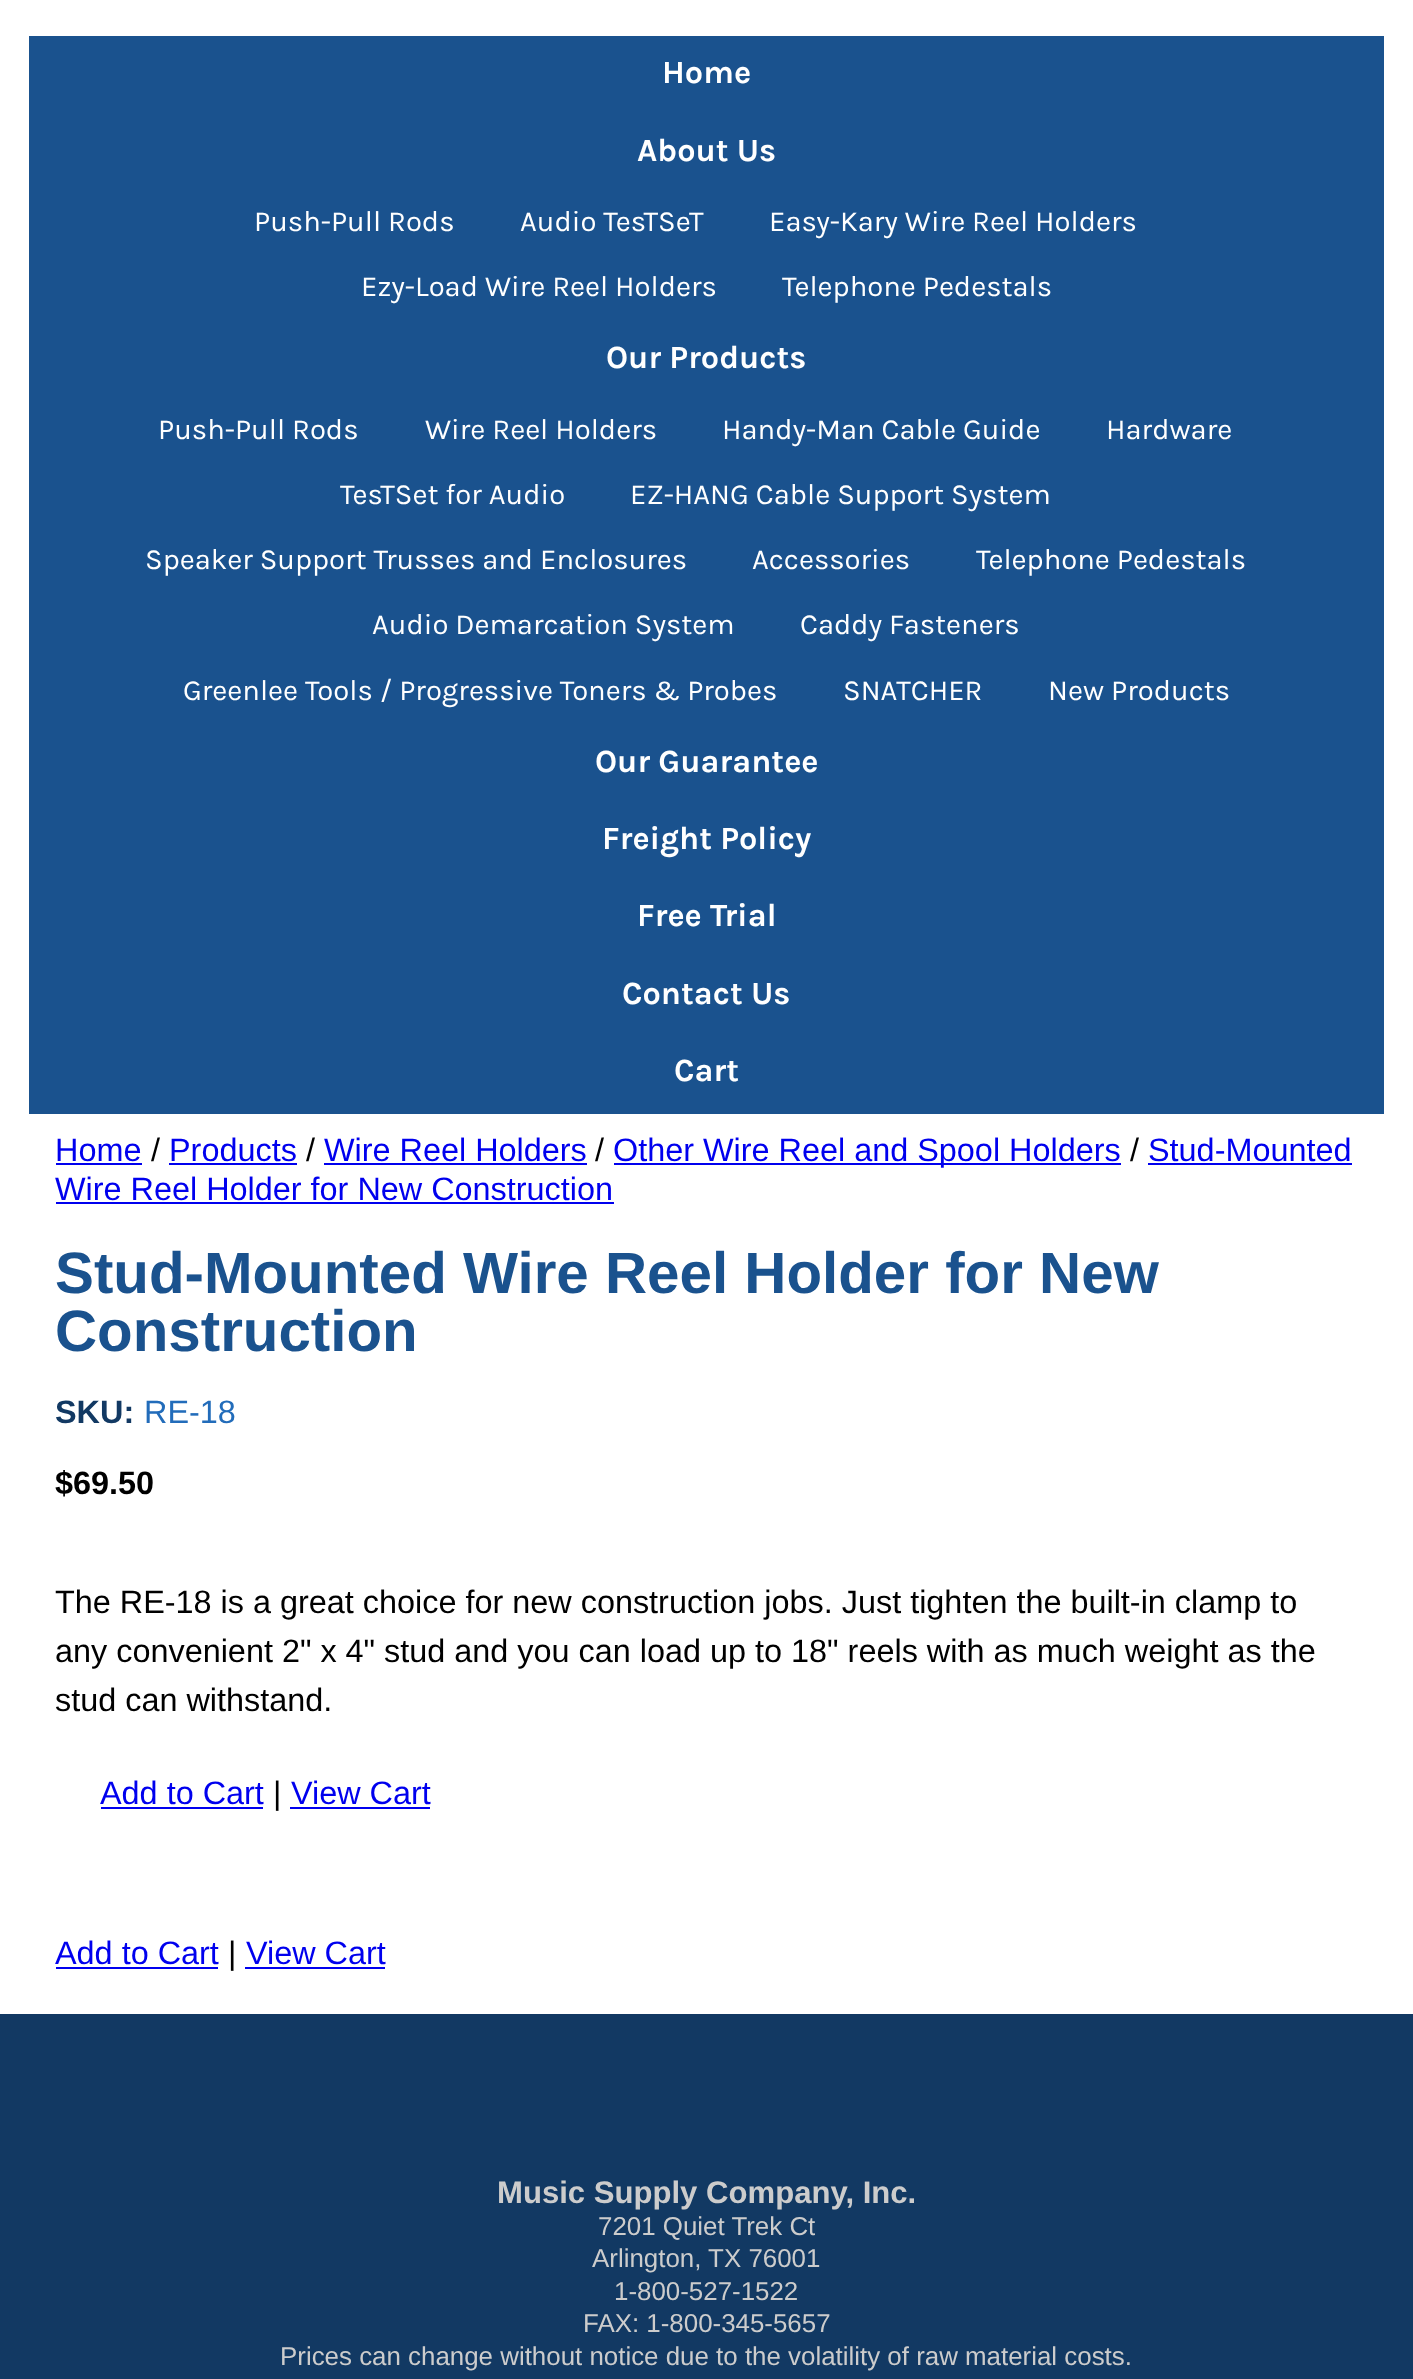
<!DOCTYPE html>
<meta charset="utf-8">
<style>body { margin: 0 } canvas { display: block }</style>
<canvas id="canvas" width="1413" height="2379"></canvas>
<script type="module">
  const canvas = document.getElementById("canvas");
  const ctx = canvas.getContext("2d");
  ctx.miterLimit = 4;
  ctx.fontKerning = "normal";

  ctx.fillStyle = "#ffffff";
  ctx.fillRect(0, 0, 1413, 2379);
  ctx.fillStyle = "#1a528e";
  ctx.fillRect(29, 36, 1355, 1078);
  ctx.font = "bold 32.4px Karla";
  ctx.fillStyle = "#ffffff";
  ctx.fillText("Home", 662, 83);
  ctx.fillText("About Us", 637, 161);
  ctx.font = "29.2px Karla";
  ctx.fillText("Push-Pull Rods", 254, 231);
  ctx.fillText("Audio TesTSeT", 520, 231);
  ctx.fillText("Easy-Kary Wire Reel Holders", 769, 231);
  ctx.fillText("Ezy-Load Wire Reel Holders", 361, 296);
  ctx.fillText("Telephone Pedestals", 782, 296);
  ctx.font = "bold 32.4px Karla";
  ctx.fillText("Our Products", 606, 368);
  ctx.font = "29.2px Karla";
  ctx.fillText("Push-Pull Rods", 158, 439);
  ctx.fillText("Wire Reel Holders", 425, 439);
  ctx.fillText("Handy-Man Cable Guide", 722, 439);
  ctx.fillText("Hardware", 1106, 439);
  ctx.fillText("TesTSet for Audio", 340, 504);
  ctx.fillText("EZ-HANG Cable Support System", 630, 504);
  ctx.fillText("Speaker Support Trusses and Enclosures", 145, 569);
  ctx.fillText("Accessories", 752, 569);
  ctx.fillText("Telephone Pedestals", 976, 569);
  ctx.fillText("Audio Demarcation System", 372, 634);
  ctx.fillText("Caddy Fasteners", 800, 634);
  ctx.fillText("Greenlee Tools / Progressive Toners & Probes", 183, 700);
  ctx.fillText("SNATCHER", 843, 700);
  ctx.fillText("New Products", 1048, 700);
  ctx.font = "bold 32.4px Karla";
  ctx.fillText("Our Guarantee", 595, 772);
  ctx.fillText("Freight Policy", 602, 849);
  ctx.fillText("Free Trial", 637, 926);
  ctx.fillText("Contact Us", 622, 1004);
  ctx.fillText("Cart", 674, 1081);
  ctx.font = "32.4px Liberation Sans";
  ctx.fillStyle = "#0000ee";
  ctx.fillText("Home", 55, 1161);
  ctx.fillRect(56, 1163, 86, 2);
  ctx.fillStyle = "#000000";
  ctx.fillText("/", 151, 1161);
  ctx.fillStyle = "#0000ee";
  ctx.fillText("Products", 169, 1161);
  ctx.fillRect(169, 1163, 128, 2);
  ctx.fillStyle = "#000000";
  ctx.fillText("/", 306, 1161);
  ctx.fillStyle = "#0000ee";
  ctx.fillText("Wire Reel Holders", 324, 1161);
  ctx.fillRect(324, 1163, 263, 2);
  ctx.fillStyle = "#000000";
  ctx.fillText("/", 595, 1161);
  ctx.fillStyle = "#0000ee";
  ctx.fillRect(614, 1163, 507, 2);
  ctx.fillText("Other Wire Reel and Spool Holders", 613, 1161);
  ctx.fillStyle = "#000000";
  ctx.fillText("/", 1130, 1161);
  ctx.fillStyle = "#0000ee";
  ctx.fillText("Stud-Mounted", 1148, 1161);
  ctx.fillRect(1148, 1163, 204, 2);
  ctx.fillText("Wire Reel Holder for New Construction", 55, 1200);
  ctx.fillRect(56, 1202, 558, 2);
  ctx.font = "bold 58.3px Liberation Sans";
  ctx.fillStyle = "#1a528e";
  ctx.fillText("Stud-Mounted Wire Reel Holder for New", 55, 1293);
  ctx.fillText("Construction", 55, 1351);
  ctx.font = "bold 32.4px Liberation Sans";
  ctx.fillStyle = "#123963";
  ctx.fillText("SKU:", 55, 1423);
  ctx.font = "32.4px Liberation Sans";
  ctx.fillStyle = "#226cba";
  ctx.fillText("RE-18", 144, 1423);
  ctx.font = "bold 32.4px Liberation Sans";
  ctx.fillStyle = "#000000";
  ctx.fillText("$69.50", 55, 1494);
  ctx.font = "32.4px Liberation Sans";
  ctx.fillText("The RE-18 is a great choice for new construction jobs. Just tighten the built-in clamp to", 55, 1613);
  ctx.fillText("any convenient 2\" x 4\" stud and you can load up to 18\" reels with as much weight as the", 55, 1662);
  ctx.fillText("stud can withstand.", 55, 1711);
  ctx.fillStyle = "#0000ee";
  ctx.fillText("Add to Cart", 100, 1804);
  ctx.fillRect(101, 1807, 162, 2);
  ctx.fillStyle = "#000000";
  ctx.fillText("|", 273, 1804);
  ctx.fillStyle = "#0000ee";
  ctx.fillText("View Cart", 291, 1804);
  ctx.fillRect(290, 1807, 140, 2);
  ctx.fillText("Add to Cart", 55, 1964);
  ctx.fillRect(56, 1967, 162, 2);
  ctx.fillStyle = "#000000";
  ctx.fillText("|", 228, 1964);
  ctx.fillStyle = "#0000ee";
  ctx.fillText("View Cart", 246, 1964);
  ctx.fillRect(245, 1967, 140, 2);
  ctx.fillStyle = "#123963";
  ctx.fillRect(0, 2014, 1413, 365);
  ctx.font = "bold 31.1px Liberation Sans";
  ctx.fillStyle = "#cccccc";
  ctx.fillText("Music Supply Company, Inc.", 497, 2203);
  ctx.font = "25.9px Liberation Sans";
  ctx.fillText("7201 Quiet Trek Ct", 598, 2235);
  ctx.fillText("Arlington, TX 76001", 592, 2267);
  ctx.fillText("1-800-527-1522", 614, 2300);
  ctx.fillText("FAX: 1-800-345-5657", 583, 2332);
  ctx.fillText("Prices can change without notice due to the volatility of raw material costs.", 280, 2365);
</script>
